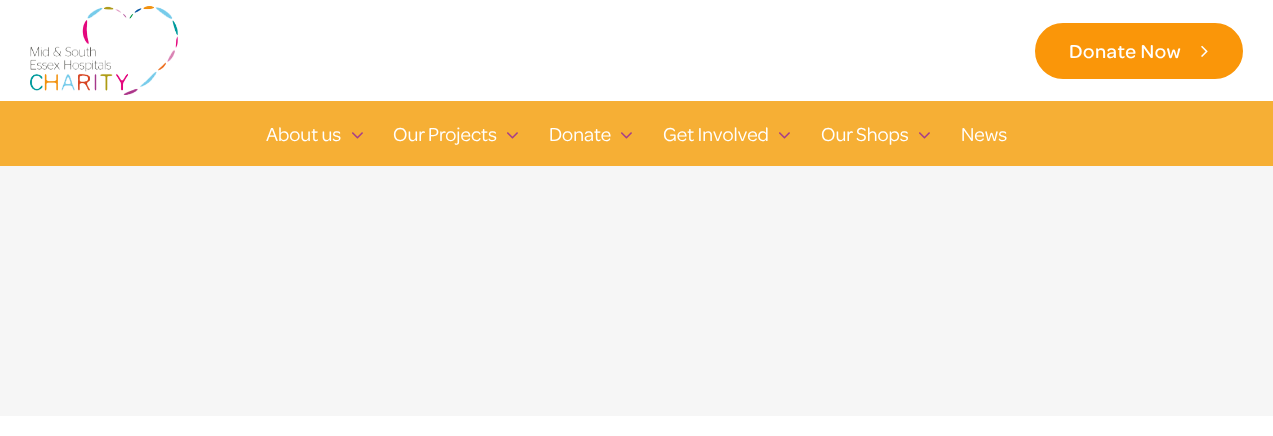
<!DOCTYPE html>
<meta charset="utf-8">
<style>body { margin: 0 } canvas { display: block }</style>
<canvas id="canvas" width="1273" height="436"></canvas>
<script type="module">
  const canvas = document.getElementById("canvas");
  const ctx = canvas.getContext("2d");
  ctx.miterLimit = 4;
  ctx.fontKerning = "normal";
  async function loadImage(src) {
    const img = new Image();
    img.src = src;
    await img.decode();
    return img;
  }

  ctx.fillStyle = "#ffffff";
  ctx.fillRect(0, 0, 1273, 436);
  ctx.drawImage(await loadImage("img1.png"), 30, 6, 148, 89);
  ctx.fillStyle = "#fa9609";
  ctx.beginPath();
  ctx.roundRect(1036, 24, 206, 54, 27);
  ctx.fill();
  ctx.strokeStyle = "#fa9609";
  ctx.lineWidth = 2;
  ctx.stroke();
  ctx.letterSpacing = "0.5px";
  ctx.font = "500 20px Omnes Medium";
  ctx.fillStyle = "#ffffff";
  ctx.fillText("Donate Now", 1069, 58);
  ctx.drawImage(await loadImage("img2.png"), 1201, 45, 7, 12);
  ctx.fillStyle = "#f6af35";
  ctx.fillRect(0, 101, 1273, 65);
  ctx.letterSpacing = "0px";
  ctx.font = "20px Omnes";
  ctx.fillStyle = "#ffffff";
  ctx.fillText("About us", 266, 141);
  ctx.drawImage(await loadImage("img3.png"), 352, 132, 11, 7);
  ctx.fillText("Our Projects", 393, 141);
  ctx.drawImage(await loadImage("img3.png"), 507, 132, 11, 7);
  ctx.fillText("Donate", 549, 141);
  ctx.drawImage(await loadImage("img3.png"), 621, 132, 11, 7);
  ctx.fillText("Get Involved", 663, 141);
  ctx.drawImage(await loadImage("img3.png"), 779, 132, 11, 7);
  ctx.fillText("Our Shops", 821, 141);
  ctx.drawImage(await loadImage("img3.png"), 919, 132, 11, 7);
  ctx.fillText("News", 961, 141);
  ctx.fillStyle = "#f6f6f6";
  ctx.fillRect(0, 166, 1273, 250);
</script>
